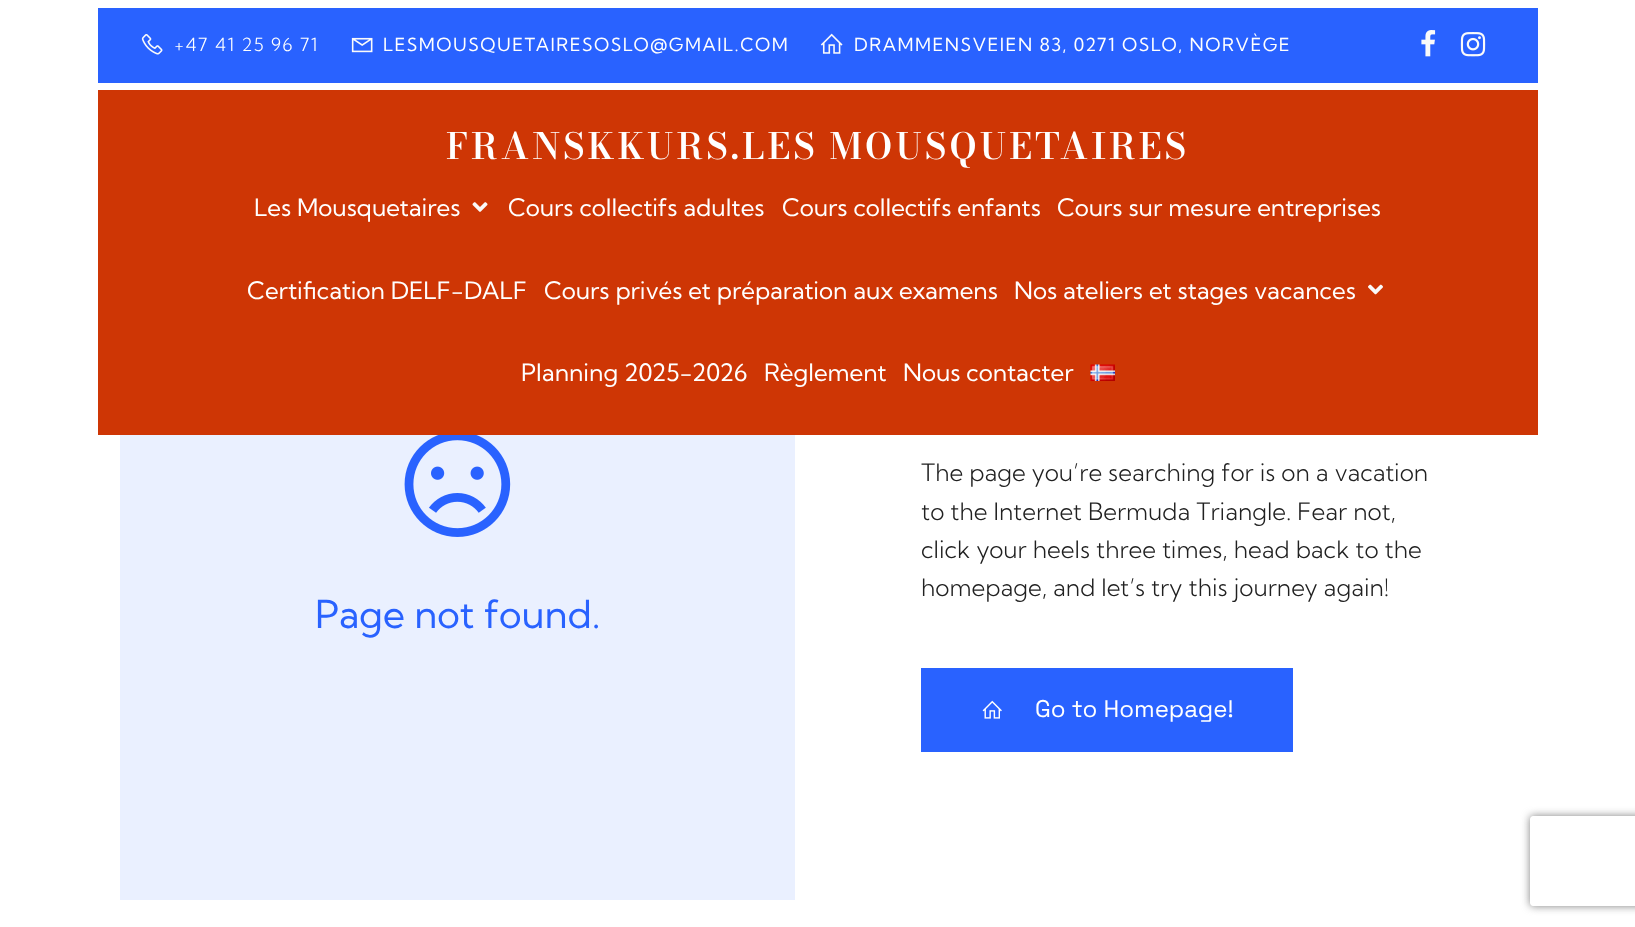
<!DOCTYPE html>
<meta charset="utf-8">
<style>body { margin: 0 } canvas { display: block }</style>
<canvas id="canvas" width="1635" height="927"></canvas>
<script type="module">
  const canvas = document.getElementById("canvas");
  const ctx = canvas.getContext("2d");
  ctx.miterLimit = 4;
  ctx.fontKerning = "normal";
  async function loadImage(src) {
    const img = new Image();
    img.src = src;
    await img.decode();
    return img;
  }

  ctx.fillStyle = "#ffffff";
  ctx.fillRect(0, 0, 1635, 927);
  ctx.fillStyle = "#2962ff";
  ctx.fillRect(98, 8, 1440, 75);
  ctx.drawImage(await loadImage("img1.png"), 141, 34, 22, 21);
  ctx.letterSpacing = "1.5px";
  ctx.font = "300 18px Kumbh Sans";
  ctx.fillStyle = "#ffffff";
  ctx.fillText("+47 41 25 96 71", 174, 51);
  ctx.drawImage(await loadImage("img2.png"), 351, 37, 22, 16);
  ctx.font = "18px Kumbh Sans";
  ctx.fillText("LESMOUSQUETAIRESOSLO@GMAIL.COM", 383, 51);
  ctx.drawImage(await loadImage("img3.png"), 820, 33, 23, 21);
  ctx.fillText("DRAMMENSVEIEN 83, 0271 OSLO, NORVÈGE", 854, 51);
  ctx.drawImage(await loadImage("img4.png"), 1421, 30, 15, 27);
  ctx.drawImage(await loadImage("img5.png"), 1460, 32, 26, 25);
  ctx.fillStyle = "#ce3605";
  ctx.fillRect(98, 90, 1440, 345);
  ctx.letterSpacing = "3px";
  ctx.font = "600 36px Bodoni Moda";
  ctx.fillStyle = "#ffffff";
  ctx.fillText("FRANSKKURS.LES MOUSQUETAIRES", 446, 159);
  ctx.letterSpacing = "0px";
  ctx.font = "24px Kumbh Sans";
  ctx.fillText("Les Mousquetaires", 254, 216);
  ctx.drawImage(await loadImage("img6.png"), 472, 202, 16, 10);
  ctx.fillText("Cours collectifs adultes", 508, 216);
  ctx.fillText("Cours collectifs enfants", 782, 216);
  ctx.fillText("Cours sur mesure entreprises", 1057, 216);
  ctx.fillText("Certification DELF-DALF", 247, 299);
  ctx.fillText("Cours privés et préparation aux examens", 544, 299);
  ctx.fillText("Nos ateliers et stages vacances", 1014, 299);
  ctx.drawImage(await loadImage("img7.png"), 1368, 284, 15, 11);
  ctx.fillText("Planning 2025-2026", 521, 381);
  ctx.fillText("Règlement", 764, 381);
  ctx.fillText("Nous contacter", 903, 381);
  ctx.drawImage(await loadImage("img8.png"), 1090, 364, 25, 17);
  ctx.fillStyle = "#eaf0ff";
  ctx.fillRect(120, 435, 675, 465);
  ctx.drawImage(await loadImage("img9.png"), 404, 435, 107, 102);
  ctx.font = "38.5px Kumbh Sans";
  ctx.fillStyle = "#2962ff";
  ctx.fillText("Page not found.", 315, 628);
  ctx.font = "300 24px Kumbh Sans";
  ctx.fillStyle = "#212121";
  ctx.fillText("The page you’re searching for is on a vacation", 921, 481);
  ctx.fillText("to the Internet Bermuda Triangle. Fear not,", 921, 520);
  ctx.fillText("click your heels three times, head back to the", 921, 558);
  ctx.fillText("homepage, and let’s try this journey again!", 921, 596);
  ctx.fillStyle = "#2962ff";
  ctx.fillRect(921, 668, 372, 84);
  ctx.drawImage(await loadImage("img10.png"), 982, 700, 20, 19);
  ctx.font = "24px Space Grotesk";
  ctx.fillStyle = "#ffffff";
  ctx.fillText("Go to Homepage!", 1035, 717);
  ctx.save();
  ctx.beginPath();
  ctx.moveTo(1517, 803);
  ctx.lineTo(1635, 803);
  ctx.lineTo(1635, 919);
  ctx.lineTo(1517, 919);
  ctx.closePath();
  ctx.moveTo(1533, 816);
  ctx.lineTo(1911, 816);
  ctx.bezierCurveTo(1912.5, 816, 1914, 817.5, 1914, 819);
  ctx.lineTo(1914, 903);
  ctx.bezierCurveTo(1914, 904.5, 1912.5, 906, 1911, 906);
  ctx.lineTo(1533, 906);
  ctx.bezierCurveTo(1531.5, 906, 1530, 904.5, 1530, 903);
  ctx.lineTo(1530, 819);
  ctx.bezierCurveTo(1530, 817.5, 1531.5, 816, 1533, 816);
  ctx.closePath();
  ctx.clip("evenodd");
  ctx.fillStyle = "#808080";
  ctx.filter = "blur(4px)";
  ctx.beginPath();
  ctx.roundRect(1530, 816, 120, 90, 3);
  ctx.fill();
  ctx.filter = "none";
  ctx.restore();
</script>
